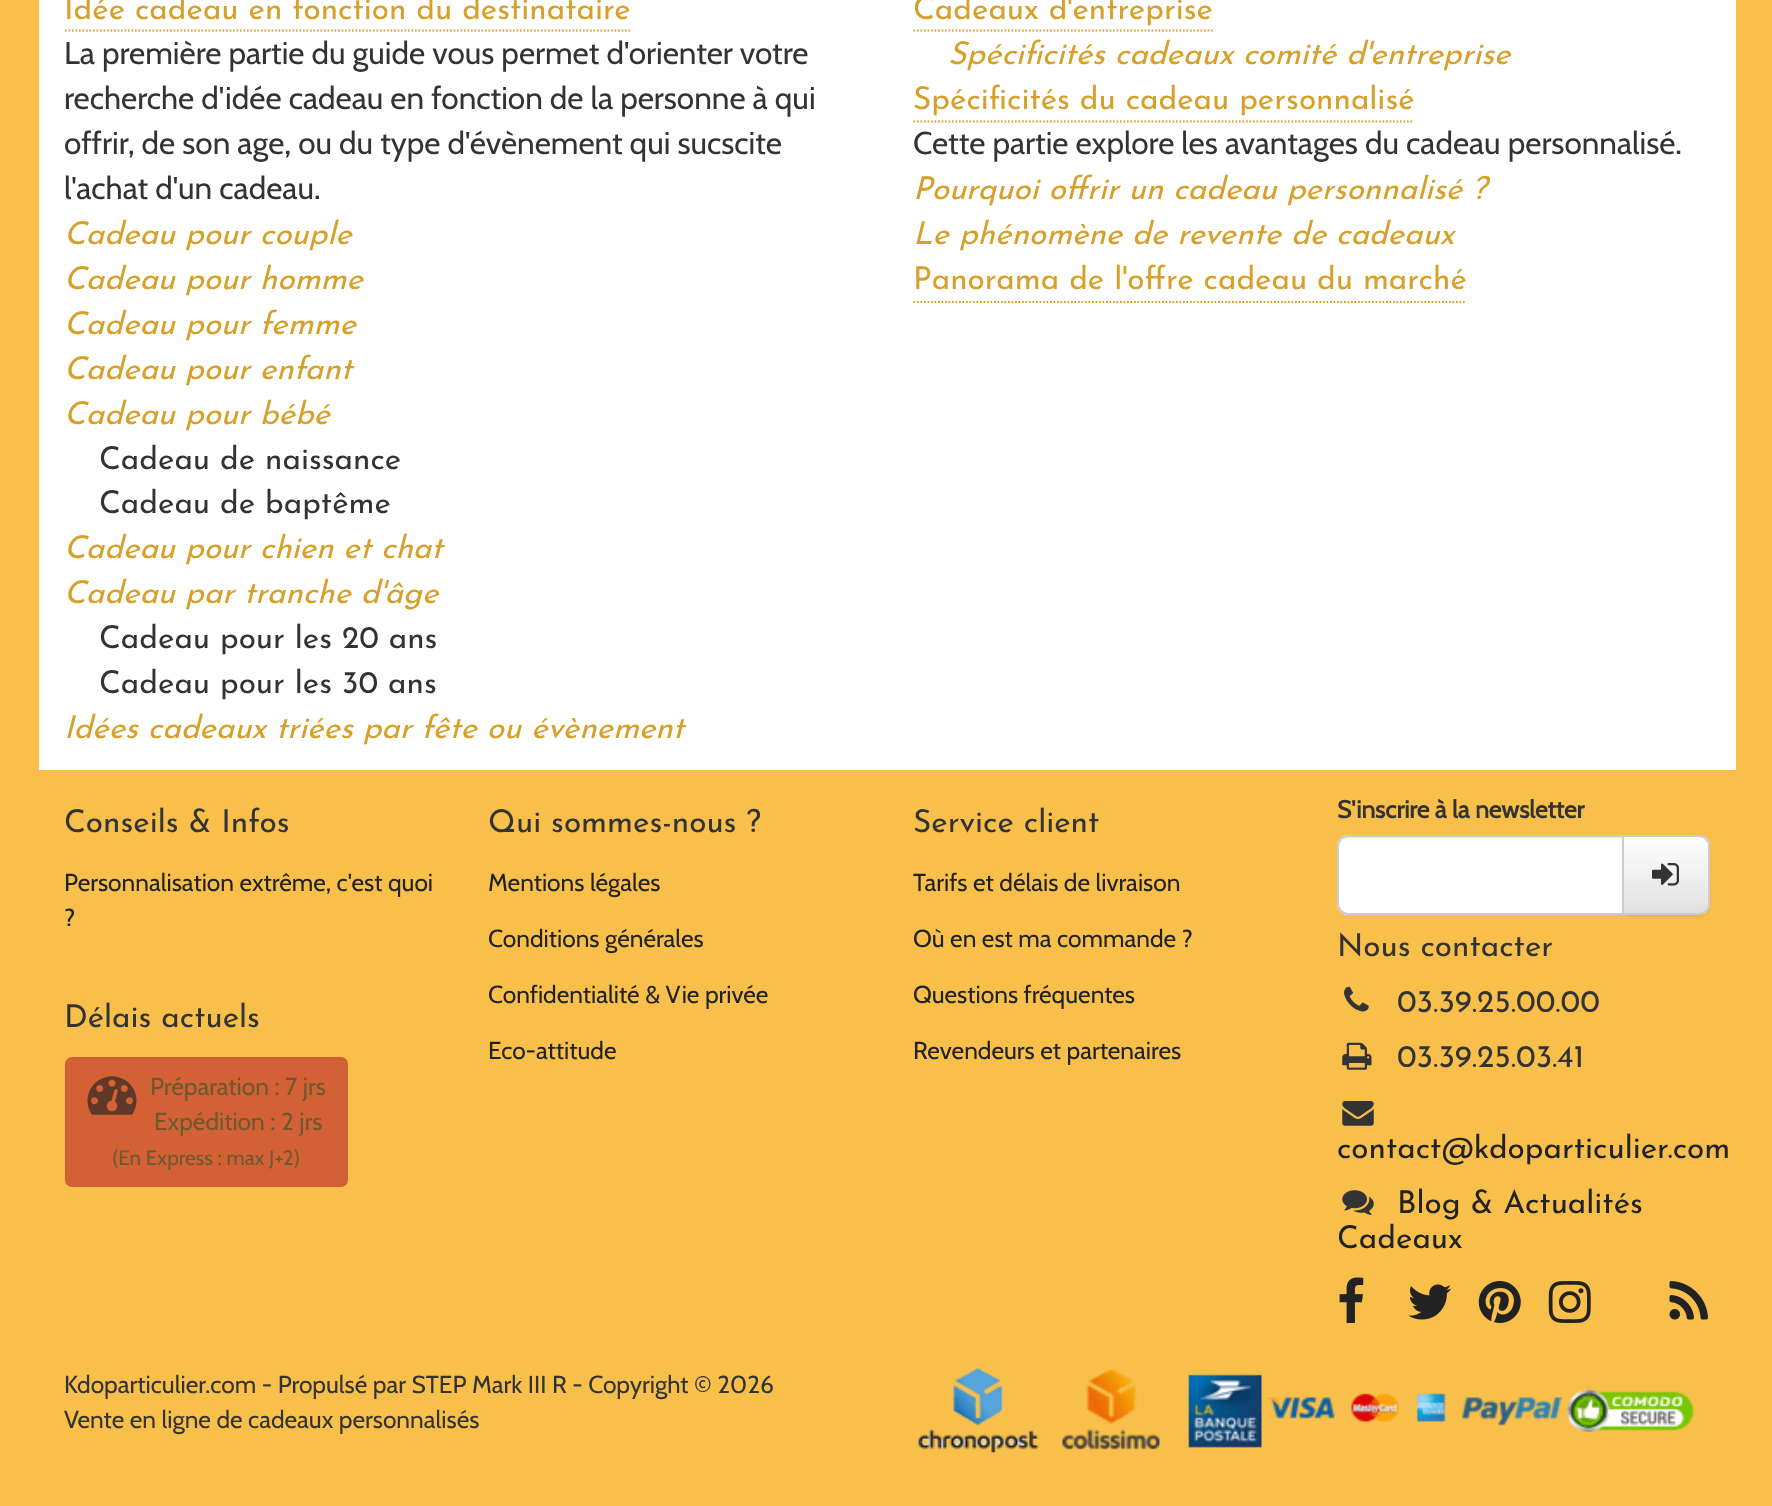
<!DOCTYPE html>
<meta charset="utf-8">
<style>body { margin: 0 } canvas { display: block }</style>
<canvas id="canvas" width="1772" height="1506"></canvas>
<script type="module">
  const canvas = document.getElementById("canvas");
  const ctx = canvas.getContext("2d");
  ctx.miterLimit = 4;
  ctx.fontKerning = "normal";
  async function loadImage(src) {
    const img = new Image();
    img.src = src;
    await img.decode();
    return img;
  }
  let gradient;

  ctx.fillStyle = "#f8c04b";
  ctx.fillRect(0, 0, 1772, 1506);
  ctx.fillStyle = "#ffffff";
  ctx.fillRect(39, 0, 1697, 770);
  ctx.beginPath();
  ctx.moveTo(65, 30.5);
  ctx.lineTo(630, 30.5);
  ctx.strokeStyle = "#d7a02a";
  ctx.lineWidth = 1.8;
  ctx.setLineDash([1.75, 1.75]);
  ctx.stroke();
  ctx.font = "100 31.5px Josefin Sans";
  ctx.fillStyle = "#d7a02a";
  ctx.fillText("Idée cadeau en fonction du destinataire", 64, 19);
  ctx.font = "31.5px Cabin";
  ctx.fillStyle = "#333333";
  ctx.fillText("La première partie du guide vous permet d'orienter votre", 64, 64);
  ctx.fillText("recherche d'idée cadeau en fonction de la personne à qui", 64, 109);
  ctx.fillText("offrir, de son age, ou du type d'évènement qui sucscite", 64, 154);
  ctx.fillText("l'achat d'un cadeau.", 64, 199);
  ctx.font = "italic 100 31.5px Josefin Sans";
  ctx.fillStyle = "#d7a02a";
  ctx.fillText("Cadeau pour couple", 64, 244);
  ctx.fillText("Cadeau pour homme", 64, 289);
  ctx.fillText("Cadeau pour femme", 64, 334);
  ctx.fillText("Cadeau pour enfant", 64, 379);
  ctx.fillText("Cadeau pour bébé", 64, 424);
  ctx.font = "100 31.5px Josefin Sans";
  ctx.fillStyle = "#333333";
  ctx.fillText("Cadeau de naissance", 99, 469);
  ctx.fillText("Cadeau de baptême", 99, 513);
  ctx.font = "italic 100 31.5px Josefin Sans";
  ctx.fillStyle = "#d7a02a";
  ctx.fillText("Cadeau pour chien et chat", 64, 558);
  ctx.fillText("Cadeau par tranche d'âge", 64, 603);
  ctx.font = "100 31.5px Josefin Sans";
  ctx.fillStyle = "#333333";
  ctx.fillText("Cadeau pour les 20 ans", 99, 648);
  ctx.fillText("Cadeau pour les 30 ans", 99, 693);
  ctx.font = "italic 100 31.5px Josefin Sans";
  ctx.fillStyle = "#d7a02a";
  ctx.fillText("Idées cadeaux triées par fête ou évènement", 64, 738);
  ctx.beginPath();
  ctx.moveTo(913.5, 30.5);
  ctx.lineTo(1213, 30.5);
  ctx.stroke();
  ctx.font = "100 31.5px Josefin Sans";
  ctx.fillText("Cadeaux d'entreprise", 913, 19);
  ctx.font = "italic 100 31.5px Josefin Sans";
  ctx.fillText("Spécificités cadeaux comité d'entreprise", 948, 64);
  ctx.beginPath();
  ctx.moveTo(913.5, 121.5);
  ctx.lineTo(1414, 121.5);
  ctx.stroke();
  ctx.font = "100 31.5px Josefin Sans";
  ctx.fillText("Spécificités du cadeau personnalisé", 913, 109);
  ctx.font = "31.5px Cabin";
  ctx.fillStyle = "#333333";
  ctx.fillText("Cette partie explore les avantages du cadeau personnalisé.", 913, 154);
  ctx.font = "italic 100 31.5px Josefin Sans";
  ctx.fillStyle = "#d7a02a";
  ctx.fillText("Pourquoi offrir un cadeau personnalisé ?", 913, 199);
  ctx.fillText("Le phénomène de revente de cadeaux", 913, 244);
  ctx.beginPath();
  ctx.moveTo(913.5, 302);
  ctx.lineTo(1466.5, 302);
  ctx.stroke();
  ctx.font = "100 31.5px Josefin Sans";
  ctx.fillText("Panorama de l'offre cadeau du marché", 913, 289);
  ctx.fillStyle = "#333333";
  ctx.fillText("Conseils & Infos", 64, 832);
  ctx.font = "24.5px Cabin";
  ctx.fillStyle = "#222222";
  ctx.fillText("Personnalisation extrême, c'est quoi", 64, 891);
  ctx.fillText("?", 64, 926);
  ctx.font = "100 31.5px Josefin Sans";
  ctx.fillStyle = "#333333";
  ctx.fillText("Délais actuels", 64, 1027);
  ctx.fillStyle = "#d46136";
  ctx.beginPath();
  ctx.roundRect(66, 1058, 281, 128, 6);
  ctx.fill();
  ctx.strokeStyle = "#cf6034";
  ctx.lineWidth = 2;
  ctx.setLineDash([]);
  ctx.stroke();
  ctx.drawImage(await loadImage("img1.png"), 87, 1076, 50, 39);
  ctx.font = "24.5px Cabin";
  ctx.fillStyle = "#6d5930";
  ctx.fillText("Préparation : 7 jrs", 150, 1095);
  ctx.fillText("Expédition : 2 jrs", 154, 1130);
  ctx.font = "20.75px Cabin";
  ctx.fillText("(En Express : max J+2)", 112, 1165);
  ctx.font = "100 31.5px Josefin Sans";
  ctx.fillStyle = "#333333";
  ctx.fillText("Qui sommes-nous ?", 488, 832);
  ctx.font = "24.5px Cabin";
  ctx.fillStyle = "#222222";
  ctx.fillText("Mentions légales", 488, 891);
  ctx.fillText("Conditions générales", 488, 947);
  ctx.fillText("Confidentialité & Vie privée", 488, 1003);
  ctx.fillText("Eco-attitude", 488, 1059);
  ctx.font = "100 31.5px Josefin Sans";
  ctx.fillStyle = "#333333";
  ctx.fillText("Service client", 913, 832);
  ctx.font = "24.5px Cabin";
  ctx.fillStyle = "#222222";
  ctx.fillText("Tarifs et délais de livraison", 913, 891);
  ctx.fillText("Où en est ma commande ?", 913, 947);
  ctx.fillText("Questions fréquentes", 913, 1003);
  ctx.fillText("Revendeurs et partenaires", 913, 1059);
  ctx.font = "bold 24.5px Cabin";
  ctx.fillStyle = "#333333";
  ctx.fillText("S'inscrire à la newsletter", 1337, 818);
  ctx.fillStyle = "#ffffff";
  ctx.beginPath();
  ctx.roundRect(1337, 835, 287, 80, [11, 0, 0, 11]);
  ctx.fill();
  ctx.fillStyle = "#ececec";
  ctx.beginPath();
  ctx.moveTo(1348, 838);
  ctx.lineTo(1622, 838);
  ctx.lineTo(1622, 837);
  ctx.lineTo(1348, 837);
  ctx.bezierCurveTo(1343, 837, 1339, 841, 1339, 846);
  ctx.lineTo(1339, 847);
  ctx.bezierCurveTo(1339, 842, 1343, 838, 1348, 838);
  ctx.closePath();
  ctx.fill();
  ctx.beginPath();
  ctx.roundRect(1338, 836, 285, 78, [10, 0, 0, 10]);
  ctx.strokeStyle = "#cccccc";
  ctx.stroke();
  ctx.fillStyle = "rgba(0, 0, 0, 0.07)";
  ctx.filter = "blur(1px)";
  ctx.beginPath();
  ctx.roundRect(1622, 837, 88, 80, 11);
  ctx.fill();
  ctx.filter = "none";
  ctx.save();
  ctx.beginPath();
  ctx.roundRect(1622, 835, 88, 80, [0, 11, 11, 0]);
  ctx.clip();
  gradient = ctx.createLinearGradient(1666, 837, 1666, 914);
  gradient.addColorStop(0, "#ffffff");
  gradient.addColorStop(1, "#e0e0e0");
  ctx.fillStyle = gradient;
  ctx.fillRect(1624, 837, 86, 77);
  ctx.restore();
  ctx.beginPath();
  ctx.roundRect(1623, 836, 86, 78, [0, 10, 10, 0]);
  ctx.stroke();
  ctx.drawImage(await loadImage("img2.png"), 1652, 863, 27, 23);
  ctx.font = "100 31.5px Josefin Sans";
  ctx.fillStyle = "#333333";
  ctx.fillText("Nous contacter", 1337, 956);
  ctx.drawImage(await loadImage("img3.png"), 1344, 986, 25, 26);
  ctx.fillText("03.39.25.00.00", 1397, 1012);
  ctx.drawImage(await loadImage("img4.png"), 1342, 1042, 30, 28);
  ctx.fillText("03.39.25.03.41", 1397, 1067);
  ctx.drawImage(await loadImage("img5.png"), 1342, 1101, 32, 25);
  ctx.fillStyle = "#222222";
  ctx.fillText("contact@kdoparticulier.com", 1337, 1158);
  ctx.drawImage(await loadImage("img6.png"), 1342, 1190, 32, 25);
  ctx.fillText("Blog & Actualités", 1397, 1213);
  ctx.fillText("Cadeaux", 1337, 1248);
  ctx.drawImage(await loadImage("img7.png"), 1339, 1277, 25, 46);
  ctx.drawImage(await loadImage("img8.png"), 1408, 1284, 44, 36);
  ctx.drawImage(await loadImage("img9.png"), 1478, 1281, 43, 42);
  ctx.drawImage(await loadImage("img10.png"), 1548, 1281, 43, 42);
  ctx.drawImage(await loadImage("img11.png"), 1669, 1281, 39, 39);
  ctx.font = "24.5px Cabin";
  ctx.fillStyle = "#333333";
  ctx.fillText("Kdoparticulier.com - Propulsé par STEP Mark III R - Copyright © 2026", 64, 1393);
  ctx.fillText("Vente en ligne de cadeaux personnalisés", 64, 1428);
  ctx.drawImage(await loadImage("img12.png"), 917, 1367, 778, 86);
</script>
